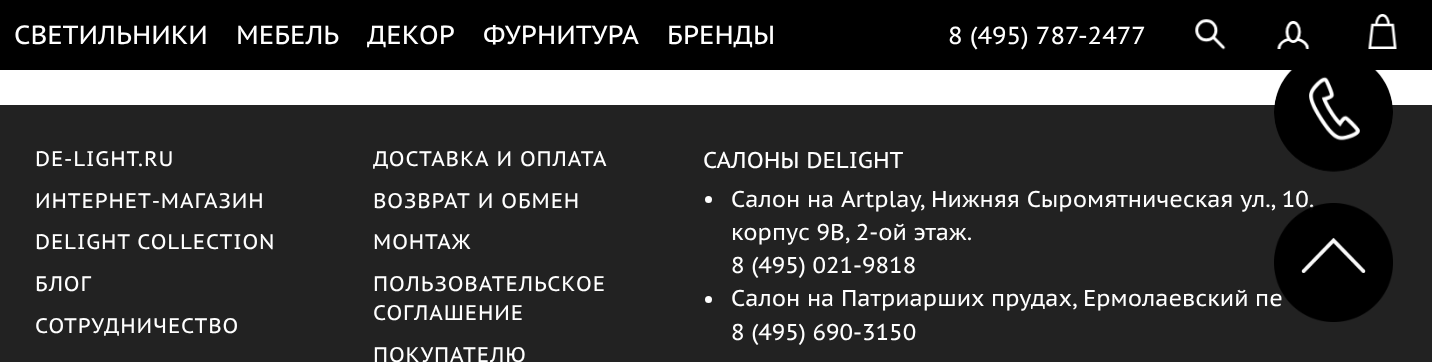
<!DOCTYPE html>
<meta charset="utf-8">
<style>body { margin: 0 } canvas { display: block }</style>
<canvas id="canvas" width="1432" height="362"></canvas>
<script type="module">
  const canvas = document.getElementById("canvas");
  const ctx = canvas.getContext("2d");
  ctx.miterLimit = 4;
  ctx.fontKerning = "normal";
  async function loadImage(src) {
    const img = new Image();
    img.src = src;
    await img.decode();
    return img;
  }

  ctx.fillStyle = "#ffffff";
  ctx.fillRect(0, 0, 1432, 362);
  ctx.fillStyle = "#000000";
  ctx.fillRect(0, 0, 1432, 70);
  ctx.font = "26.25px PT Sans Caption";
  ctx.fillStyle = "#ffffff";
  ctx.fillText("СВЕТИЛЬНИКИ", 14, 44);
  ctx.fillText("МЕБЕЛЬ", 236, 44);
  ctx.fillText("ДЕКОР", 367, 44);
  ctx.fillText("ФУРНИТУРА", 483, 44);
  ctx.fillText("БРЕНДЫ", 667, 44);
  ctx.fillStyle = "#222222";
  ctx.fillRect(0, 105, 1432, 257);
  ctx.drawImage(await loadImage("img1.png"), 1274, 70, 119, 102);
  ctx.letterSpacing = "0.9px";
  ctx.font = "21px PT Sans Caption";
  ctx.fillStyle = "#ffffff";
  ctx.fillText("DE-LIGHT.RU", 35, 166);
  ctx.fillText("ДОСТАВКА И ОПЛАТА", 373, 166);
  ctx.fillText("ИНТЕРНЕТ-МАГАЗИН", 35, 208);
  ctx.fillText("ВОЗВРАТ И ОБМЕН", 373, 208);
  ctx.fillText("DELIGHT COLLECTION", 35, 249);
  ctx.fillText("МОНТАЖ", 373, 249);
  ctx.fillText("БЛОГ", 35, 291);
  ctx.fillText("ПОЛЬЗОВАТЕЛЬСКОЕ", 373, 291);
  ctx.fillText("СОГЛАШЕНИЕ", 373, 320);
  ctx.fillText("СОТРУДНИЧЕСТВО", 35, 333);
  ctx.fillText("ПОКУПАТЕЛЮ", 373, 362);
  ctx.letterSpacing = "0px";
  ctx.font = "22.75px PT Sans Caption";
  ctx.fillText("САЛОНЫ DELIGHT", 703, 168);
  ctx.beginPath();
  ctx.arc(708.5, 199.5, 3.5, 0, Math.PI * 2);
  ctx.fill();
  ctx.fillText("Салон на Artplay, Нижняя Сыромятническая ул., 10,", 731, 207);
  ctx.fillText("корпус 9B, 2-ой этаж.", 731, 240);
  ctx.fillText("8 (495) 021-9818", 731, 273);
  ctx.beginPath();
  ctx.arc(708.5, 299.5, 3.5, 0, Math.PI * 2);
  ctx.fill();
  ctx.fillText("Салон на Патриарших прудах, Ермолаевский пе", 731, 306);
  ctx.fillText("8 (495) 690-3150", 731, 340);
  ctx.drawImage(await loadImage("img2.png"), 1274, 203, 119, 119);
  ctx.font = "24.5px PT Sans Caption";
  ctx.fillText("8 (495) 787-2477", 948, 44);
  ctx.drawImage(await loadImage("img3.png"), 1195, 19, 31, 31);
  ctx.drawImage(await loadImage("img4.png"), 1277, 21, 33, 28);
  ctx.drawImage(await loadImage("img5.png"), 1368, 14, 29, 35);
</script>
